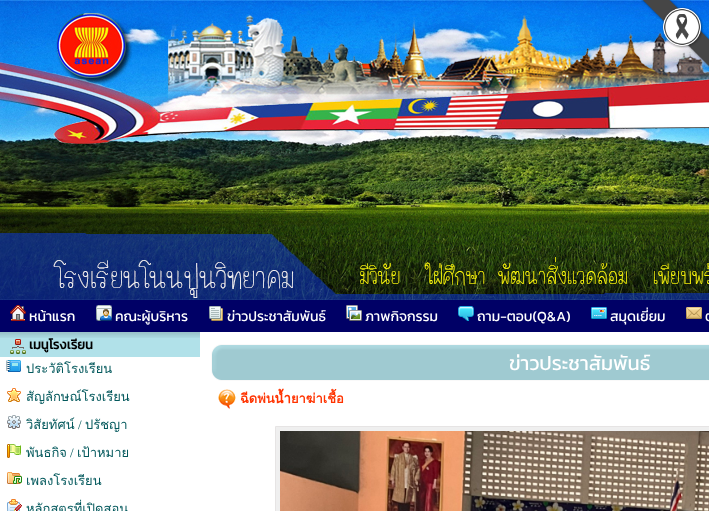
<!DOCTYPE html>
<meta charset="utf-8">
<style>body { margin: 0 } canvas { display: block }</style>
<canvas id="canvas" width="709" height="511"></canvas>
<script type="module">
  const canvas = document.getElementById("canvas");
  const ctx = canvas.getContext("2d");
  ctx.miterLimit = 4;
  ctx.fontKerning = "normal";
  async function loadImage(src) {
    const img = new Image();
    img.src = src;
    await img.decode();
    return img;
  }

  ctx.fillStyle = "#ffffff";
  ctx.fillRect(0, 0, 709, 511);
  ctx.drawImage(await loadImage("img2.png"), 0, 0, 709, 300);
  ctx.drawImage(await loadImage("img1.png"), 641, 0, 68, 68);
  ctx.fillStyle = "#000066";
  ctx.fillRect(0, 300, 709, 32);
  ctx.drawImage(await loadImage("img3.png"), 10, 305, 16, 16);
  ctx.font = "14px Kanit";
  ctx.fillStyle = "#ffffff";
  ctx.fillText("หน้าแรก", 29, 321);
  ctx.drawImage(await loadImage("img4.png"), 96, 305, 16, 16);
  ctx.fillText("คณะผู้บริหาร", 115, 321);
  ctx.drawImage(await loadImage("img5.png"), 209, 306, 14, 15);
  ctx.fillText("ข่าวประชาสัมพันธ์", 227, 321);
  ctx.drawImage(await loadImage("img6.png"), 346, 305, 16, 16);
  ctx.fillText("ภาพกิจกรรม", 365, 321);
  ctx.drawImage(await loadImage("img7.png"), 458, 306, 16, 15);
  ctx.fillText("ถาม-ตอบ(Q&A)", 477, 321);
  ctx.drawImage(await loadImage("img8.png"), 591, 307, 16, 12);
  ctx.fillText("สมุดเยี่ยม", 610, 321);
  ctx.drawImage(await loadImage("img9.png"), 686, 307, 16, 12);
  ctx.fillText("ต", 705, 321);
  ctx.fillStyle = "#b1e1e9";
  ctx.fillRect(0, 332, 200, 25);
  ctx.drawImage(await loadImage("img10.png"), 0, 332, 200, 6);
  ctx.drawImage(await loadImage("img11.png"), 10, 339, 16, 15);
  ctx.font = "bold 13px Kanit";
  ctx.fillStyle = "#000000";
  ctx.fillText("เมนูโรงเรียน", 29, 349);
  ctx.drawImage(await loadImage("img12.png"), 6, 360, 15, 12);
  ctx.font = "13px Loma";
  ctx.fillStyle = "#03585c";
  ctx.fillText("ประวัติโรงเรียน", 26, 373);
  ctx.drawImage(await loadImage("img13.png"), 7, 388, 14, 14);
  ctx.fillText("สัญลักษณ์โรงเรียน", 26, 401);
  ctx.drawImage(await loadImage("img14.png"), 7, 415, 14, 14);
  ctx.fillText("วิสัยทัศน์", 26, 429);
  ctx.font = "13px Liberation Serif";
  ctx.fillText("/", 78, 429);
  ctx.font = "13px Loma";
  ctx.fillText("ปรัชญา", 85, 429);
  ctx.drawImage(await loadImage("img15.png"), 7, 444, 14, 14);
  ctx.fillText("พันธกิจ", 26, 457);
  ctx.font = "13px Liberation Serif";
  ctx.fillText("/", 70, 457);
  ctx.font = "13px Loma";
  ctx.fillText("เป้าหมาย", 77, 457);
  ctx.drawImage(await loadImage("img16.png"), 7, 472, 15, 12);
  ctx.fillText("เพลงโรงเรียน", 26, 485);
  ctx.drawImage(await loadImage("img17.png"), 7, 499, 15, 12);
  ctx.fillText("หลักสูตรที่เปิดสอน", 26, 513);
  ctx.fillStyle = "#b1e1e9";
  ctx.fillRect(212, 345, 497, 35);
  ctx.drawImage(await loadImage("img18.png"), 210, 342, 25, 41);
  ctx.drawImage(await loadImage("img19.png"), 235, 342, 474, 41);
  ctx.font = "20px Kanit";
  ctx.fillStyle = "#ffffff";
  ctx.fillText("ข่าวประชาสัมพันธ์", 509, 370);
  ctx.drawImage(await loadImage("img20.png"), 218, 389, 18, 20);
  ctx.font = "bold 13px Loma";
  ctx.fillStyle = "#ff3300";
  ctx.fillText("ฉีดพ่นน้ำยาฆ่าเชื้อ", 240, 403);
  ctx.fillStyle = "#efefef";
  ctx.beginPath();
  ctx.rect(275.5, 426.5, 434, 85);
  ctx.fill();
  ctx.strokeStyle = "#e6e4e4";
  ctx.stroke();
  ctx.drawImage(await loadImage("img21.png"), 280, 431, 429, 80);
</script>
